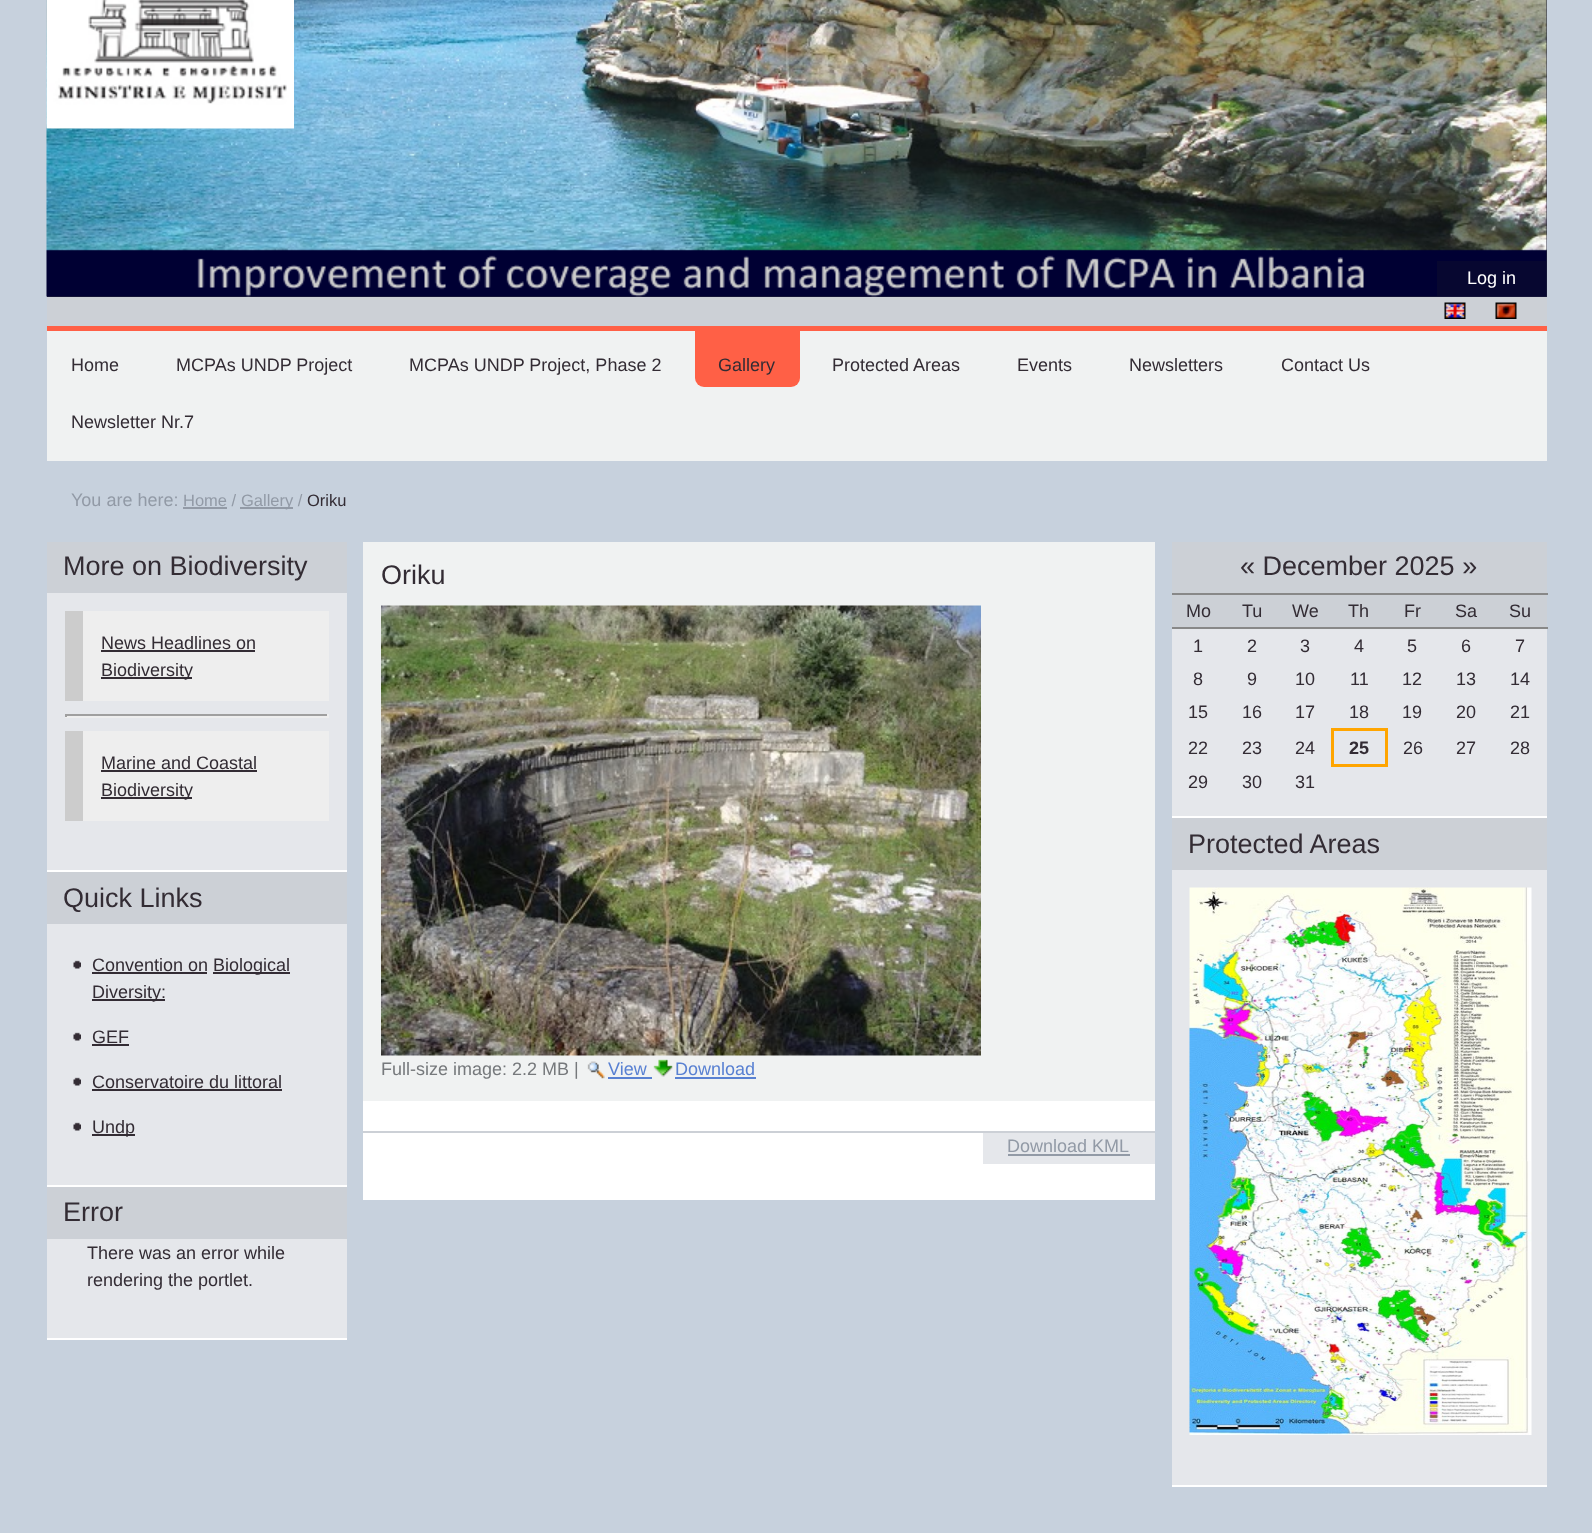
<!DOCTYPE html>
<meta charset="utf-8">
<style>body { margin: 0 } canvas { display: block }</style>
<canvas id="canvas" width="1592" height="1533"></canvas>
<script type="module">
  const canvas = document.getElementById("canvas");
  const ctx = canvas.getContext("2d");
  ctx.miterLimit = 4;
  ctx.fontKerning = "normal";
  async function loadImage(src) {
    const img = new Image();
    img.src = src;
    await img.decode();
    return img;
  }

  ctx.fillStyle = "#c7d1dd";
  ctx.fillRect(0, 0, 1592, 1533);
  ctx.fillStyle = "#28293c";
  ctx.fillRect(47, 0, 1500, 297);
  ctx.drawImage(await loadImage("img1.png"), 46, 0, 1501, 297);
  ctx.drawImage(await loadImage("img2.png"), 46, 0, 248, 129);
  ctx.fillStyle = "#070730";
  ctx.fillRect(1437, 261, 109, 35);
  ctx.font = "18px Liberation Sans";
  ctx.fillStyle = "#ffffff";
  ctx.fillText("Log in", 1467, 284);
  ctx.fillStyle = "#ccd0d6";
  ctx.fillRect(47, 297, 1500, 29);
  ctx.drawImage(await loadImage("img3.png"), 1444, 302, 22, 17);
  ctx.drawImage(await loadImage("img4.png"), 1495, 302, 22, 17);
  ctx.fillStyle = "#f0f2f2";
  ctx.fillRect(47, 331, 1500, 130);
  ctx.fillStyle = "#ff6046";
  ctx.fillRect(47, 326, 1500, 5);
  ctx.fillStyle = "#332c34";
  ctx.fillText("Home", 71, 371);
  ctx.fillText("MCPAs UNDP Project", 176, 371);
  ctx.fillText("MCPAs UNDP Project, Phase 2", 409, 371);
  ctx.fillStyle = "#ff6046";
  ctx.beginPath();
  ctx.roundRect(695, 330, 105, 57, [0, 0, 9, 9]);
  ctx.fill();
  ctx.fillStyle = "#332c34";
  ctx.fillText("Gallery", 718, 371);
  ctx.fillText("Protected Areas", 832, 371);
  ctx.fillText("Events", 1017, 371);
  ctx.fillText("Newsletters", 1129, 371);
  ctx.fillText("Contact Us", 1281, 371);
  ctx.fillText("Newsletter Nr.7", 71, 428);
  ctx.fillStyle = "#929aa6";
  ctx.fillText("You are here:", 71, 506);
  ctx.font = "16.5px Liberation Sans";
  ctx.fillText("Home /", 183, 506);
  ctx.fillRect(183, 507, 44, 2);
  ctx.fillRect(240, 507, 53, 2);
  ctx.fillText("Gallery /", 241, 506);
  ctx.fillStyle = "#332c34";
  ctx.fillText("Oriku", 307, 506);
  ctx.fillStyle = "#e5e7eb";
  ctx.fillRect(47, 593, 300, 277);
  ctx.fillStyle = "#ffffff";
  ctx.fillRect(47, 870, 300, 2);
  ctx.fillStyle = "#ccd0d6";
  ctx.fillRect(47, 542, 300, 51);
  ctx.font = "27px Liberation Sans";
  ctx.fillStyle = "#332c34";
  ctx.fillText("More on Biodiversity", 63, 575);
  ctx.fillStyle = "#eeeeee";
  ctx.fillRect(83, 611, 246, 90);
  ctx.fillStyle = "#cccccc";
  ctx.fillRect(65, 611, 18, 90);
  ctx.font = "18px Liberation Sans";
  ctx.fillStyle = "#332c34";
  ctx.fillText("News Headlines on", 101, 649);
  ctx.fillRect(101, 650, 154, 2);
  ctx.fillRect(101, 677, 91, 2);
  ctx.fillText("Biodiversity", 101, 676);
  ctx.fillStyle = "#9f9f9f";
  ctx.fillRect(65, 714, 264, 2);
  ctx.fillStyle = "#eeeeee";
  ctx.fillRect(327, 714, 2, 3);
  ctx.fillRect(65, 716, 264, 2);
  ctx.fillStyle = "#9f9f9f";
  ctx.fillRect(65, 714, 2, 3);
  ctx.fillStyle = "#eeeeee";
  ctx.fillRect(83, 731, 246, 90);
  ctx.fillStyle = "#cccccc";
  ctx.fillRect(65, 731, 18, 90);
  ctx.fillStyle = "#332c34";
  ctx.fillText("Marine and Coastal", 101, 769);
  ctx.fillRect(101, 770, 156, 2);
  ctx.fillRect(101, 797, 91, 2);
  ctx.fillText("Biodiversity", 101, 796);
  ctx.fillStyle = "#e5e7eb";
  ctx.fillRect(47, 924, 300, 261);
  ctx.fillStyle = "#ffffff";
  ctx.fillRect(47, 1185, 300, 2);
  ctx.fillStyle = "#ccd0d6";
  ctx.fillRect(47, 872, 300, 52);
  ctx.font = "27px Liberation Sans";
  ctx.fillStyle = "#332c34";
  ctx.fillText("Quick Links", 63, 907);
  ctx.drawImage(await loadImage("img5.png"), 73, 960, 8, 9);
  ctx.font = "18px Liberation Sans";
  ctx.fillText("Convention on", 92, 971);
  ctx.fillRect(92, 972, 115, 2);
  ctx.fillRect(213, 972, 77, 2);
  ctx.fillText("Biological", 213, 971);
  ctx.fillRect(92, 999, 73, 2);
  ctx.fillText("Diversity:", 92, 998);
  ctx.drawImage(await loadImage("img5.png"), 73, 1032, 8, 9);
  ctx.fillText("GEF", 92, 1043);
  ctx.fillRect(92, 1044, 37, 2);
  ctx.drawImage(await loadImage("img5.png"), 73, 1077, 8, 9);
  ctx.fillText("Conservatoire du littoral", 92, 1088);
  ctx.fillRect(92, 1089, 190, 2);
  ctx.drawImage(await loadImage("img5.png"), 73, 1122, 8, 9);
  ctx.fillRect(92, 1134, 43, 2);
  ctx.fillText("Undp", 92, 1133);
  ctx.fillStyle = "#e5e7eb";
  ctx.fillRect(47, 1239, 300, 99);
  ctx.fillStyle = "#ffffff";
  ctx.fillRect(47, 1338, 300, 2);
  ctx.fillStyle = "#ccd0d6";
  ctx.fillRect(47, 1187, 300, 52);
  ctx.font = "27px Liberation Sans";
  ctx.fillStyle = "#332c34";
  ctx.fillText("Error", 63, 1221);
  ctx.font = "18px Liberation Sans";
  ctx.fillText("There was an error while", 87, 1259);
  ctx.fillText("rendering the portlet.", 87, 1286);
  ctx.fillStyle = "#f0f2f2";
  ctx.fillRect(363, 542, 792, 559);
  ctx.font = "27px Liberation Sans";
  ctx.fillStyle = "#332c34";
  ctx.fillText("Oriku", 381, 584);
  ctx.drawImage(await loadImage("img6.png"), 381, 605, 600, 451);
  ctx.font = "18px Liberation Sans";
  ctx.fillStyle = "#76797c";
  ctx.fillText("Full-size image: 2.2 MB |", 381, 1075);
  ctx.drawImage(await loadImage("img7.png"), 587, 1061, 18, 18);
  ctx.fillStyle = "#5981d2";
  ctx.fillText("View", 608, 1075);
  ctx.fillRect(608, 1077, 44, 2);
  ctx.drawImage(await loadImage("img8.png"), 653, 1059, 20, 18);
  ctx.fillText("Download", 675, 1075);
  ctx.fillRect(675, 1077, 81, 2);
  ctx.fillStyle = "#ffffff";
  ctx.fillRect(363, 1101, 792, 99);
  ctx.fillStyle = "#ccd0d6";
  ctx.fillRect(363, 1131, 792, 2);
  ctx.fillStyle = "#e5e7eb";
  ctx.fillRect(983, 1133, 172, 31);
  ctx.fillStyle = "#929aa6";
  ctx.fillText("Download KML", 1007, 1152);
  ctx.fillRect(1008, 1154, 122, 2);
  ctx.fillStyle = "#e5e7eb";
  ctx.fillRect(1172, 629, 375, 187);
  ctx.fillStyle = "#ffffff";
  ctx.fillRect(1172, 816, 375, 2);
  ctx.fillStyle = "#ccd0d6";
  ctx.fillRect(1172, 542, 375, 51);
  ctx.font = "27px Liberation Sans";
  ctx.fillStyle = "#332c34";
  ctx.fillText("« December 2025 »", 1240, 575);
  ctx.fillStyle = "#ccd0d6";
  ctx.fillRect(1172, 595, 375, 32);
  ctx.font = "18px Liberation Sans";
  ctx.fillStyle = "#332c34";
  ctx.fillText("Mo", 1186, 617);
  ctx.fillText("Tu", 1242, 617);
  ctx.fillText("We", 1292, 617);
  ctx.fillText("Th", 1348, 617);
  ctx.fillText("Fr", 1404, 617);
  ctx.fillText("Sa", 1455, 617);
  ctx.fillStyle = "#888888";
  ctx.fillRect(1172, 593, 376, 2);
  ctx.fillRect(1172, 627, 376, 2);
  ctx.fillStyle = "#332c34";
  ctx.fillText("Su", 1509, 617);
  ctx.fillText("1", 1193, 652);
  ctx.fillText("2", 1247, 652);
  ctx.fillText("3", 1300, 652);
  ctx.fillText("4", 1354, 652);
  ctx.fillText("5", 1407, 652);
  ctx.fillText("6", 1461, 652);
  ctx.fillText("7", 1515, 652);
  ctx.fillText("8", 1193, 685);
  ctx.fillText("9", 1247, 685);
  ctx.fillText("10", 1295, 685);
  ctx.fillText("11", 1350, 685);
  ctx.fillText("12", 1402, 685);
  ctx.fillText("13", 1456, 685);
  ctx.fillText("14", 1510, 685);
  ctx.fillText("15", 1188, 718);
  ctx.fillText("16", 1242, 718);
  ctx.fillText("17", 1295, 718);
  ctx.fillText("18", 1349, 718);
  ctx.fillText("19", 1402, 718);
  ctx.fillText("20", 1456, 718);
  ctx.fillText("21", 1510, 718);
  ctx.fillText("22", 1188, 754);
  ctx.fillText("23", 1242, 754);
  ctx.fillText("24", 1295, 754);
  ctx.fillStyle = "#ffa500";
  ctx.fillRect(1331, 728, 57, 3);
  ctx.fillRect(1385, 728, 3, 39);
  ctx.fillRect(1331, 764, 57, 3);
  ctx.fillRect(1331, 728, 3, 39);
  ctx.font = "bold 18px Liberation Sans";
  ctx.fillStyle = "#332c34";
  ctx.fillText("25", 1349, 754);
  ctx.font = "18px Liberation Sans";
  ctx.fillText("26", 1403, 754);
  ctx.fillText("27", 1456, 754);
  ctx.fillText("28", 1510, 754);
  ctx.fillText("29", 1188, 788);
  ctx.fillText("30", 1242, 788);
  ctx.fillText("31", 1295, 788);
  ctx.fillStyle = "#e5e7eb";
  ctx.fillRect(1172, 870, 375, 615);
  ctx.fillStyle = "#ffffff";
  ctx.fillRect(1172, 1485, 375, 2);
  ctx.fillStyle = "#ccd0d6";
  ctx.fillRect(1172, 818, 375, 52);
  ctx.font = "27px Liberation Sans";
  ctx.fillStyle = "#332c34";
  ctx.fillText("Protected Areas", 1188, 853);
  ctx.drawImage(await loadImage("img9.png"), 1189, 887, 343, 548);
</script>
